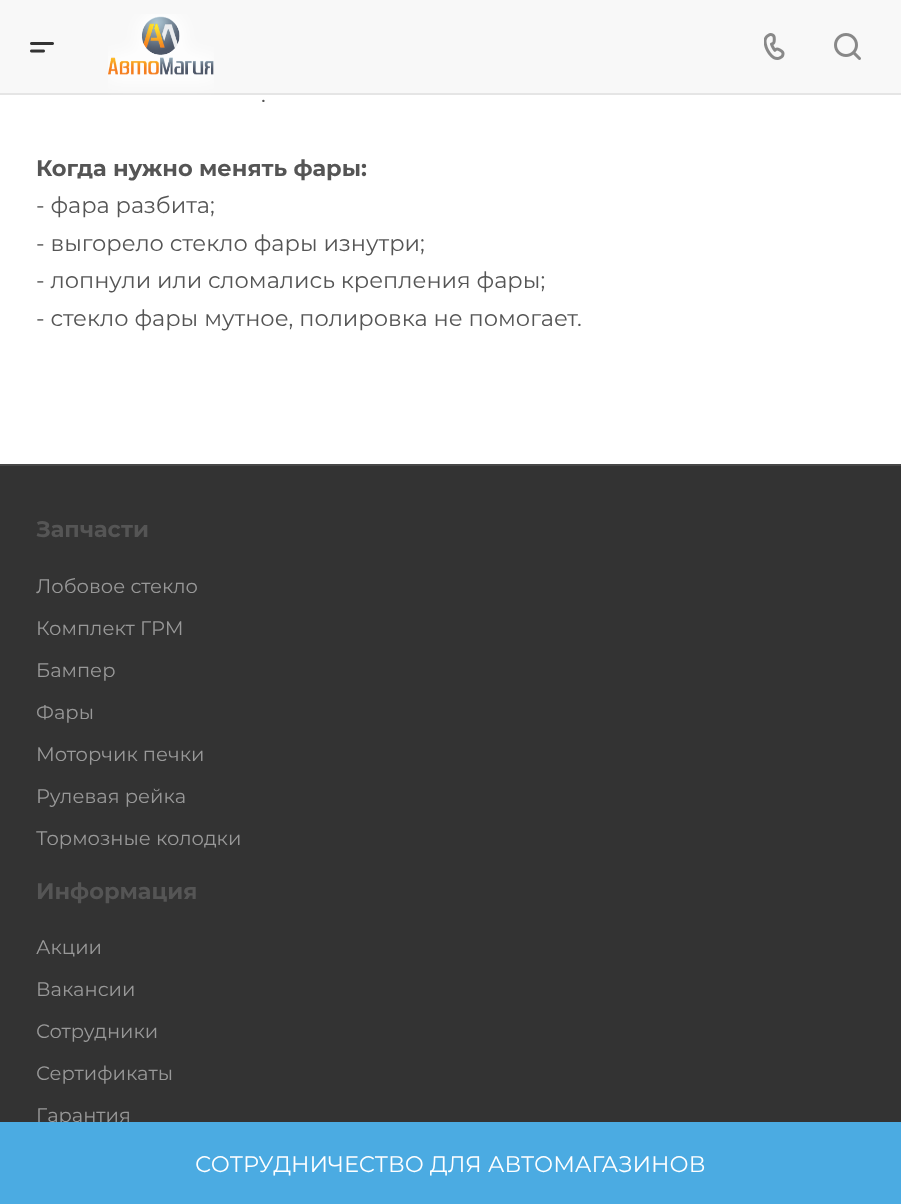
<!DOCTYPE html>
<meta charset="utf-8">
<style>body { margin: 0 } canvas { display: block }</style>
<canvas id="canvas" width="901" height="1204"></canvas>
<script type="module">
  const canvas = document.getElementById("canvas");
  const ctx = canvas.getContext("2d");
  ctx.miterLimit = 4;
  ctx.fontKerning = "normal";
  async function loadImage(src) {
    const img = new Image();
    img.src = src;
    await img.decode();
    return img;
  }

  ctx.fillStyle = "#ffffff";
  ctx.fillRect(0, 0, 901, 1204);
  ctx.fillStyle = "#e5e5e5";
  ctx.beginPath();
  ctx.moveTo(0, 93);
  ctx.lineTo(0, 95);
  ctx.lineTo(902, 95);
  ctx.lineTo(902, 2);
  ctx.lineTo(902, 93);
  ctx.closePath();
  ctx.fill();
  ctx.fillStyle = "#f8f8f8";
  ctx.fillRect(0, 0, 901, 93);
  ctx.drawImage(await loadImage("img1.png"), 30, 42, 24, 11);
  ctx.drawImage(await loadImage("img2.png"), 108, 14, 106, 83);
  ctx.drawImage(await loadImage("img3.png"), 764, 33, 21, 27);
  ctx.drawImage(await loadImage("img4.png"), 834, 33, 27, 27);
  ctx.font = "22.5px Montserrat";
  ctx.fillStyle = "#555555";
  ctx.fillText(".", 261, 102);
  ctx.font = "bold 22.5px Montserrat";
  ctx.fillText("Когда нужно менять фары:", 36, 176);
  ctx.font = "22.5px Montserrat";
  ctx.fillText("- фара разбита;", 36, 213);
  ctx.fillText("- выгорело стекло фары изнутри;", 36, 251);
  ctx.fillText("- лопнули или сломались крепления фары;", 36, 288);
  ctx.fillText("- стекло фары мутное, полировка не помогает.", 36, 326);
  ctx.fillStyle = "#333333";
  ctx.fillRect(0, 466, 901, 656);
  ctx.fillStyle = "#474747";
  ctx.fillRect(0, 464, 901, 2);
  ctx.font = "bold 22.5px Montserrat";
  ctx.fillStyle = "#555555";
  ctx.fillText("Запчасти", 36, 537);
  ctx.font = "19.5px Montserrat";
  ctx.fillStyle = "#999999";
  ctx.fillText("Лобовое стекло", 36, 593);
  ctx.fillText("Комплект ГРМ", 36, 635);
  ctx.fillText("Бампер", 36, 677);
  ctx.fillText("Фары", 36, 719);
  ctx.fillText("Моторчик печки", 36, 761);
  ctx.fillText("Рулевая рейка", 36, 803);
  ctx.fillText("Тормозные колодки", 36, 845);
  ctx.font = "bold 22.5px Montserrat";
  ctx.fillStyle = "#555555";
  ctx.fillText("Информация", 36, 899);
  ctx.font = "19.5px Montserrat";
  ctx.fillStyle = "#999999";
  ctx.fillText("Акции", 36, 954);
  ctx.fillText("Вакансии", 36, 996);
  ctx.fillText("Сотрудники", 36, 1038);
  ctx.fillText("Сертификаты", 36, 1080);
  ctx.fillText("Гарантия", 36, 1122);
  ctx.fillStyle = "#4babe2";
  ctx.fillRect(0, 1122, 901, 82);
  ctx.font = "22.5px Montserrat";
  ctx.fillStyle = "#ffffff";
  ctx.fillText("СОТРУДНИЧЕСТВО ДЛЯ АВТОМАГАЗИНОВ", 195, 1172);
</script>
